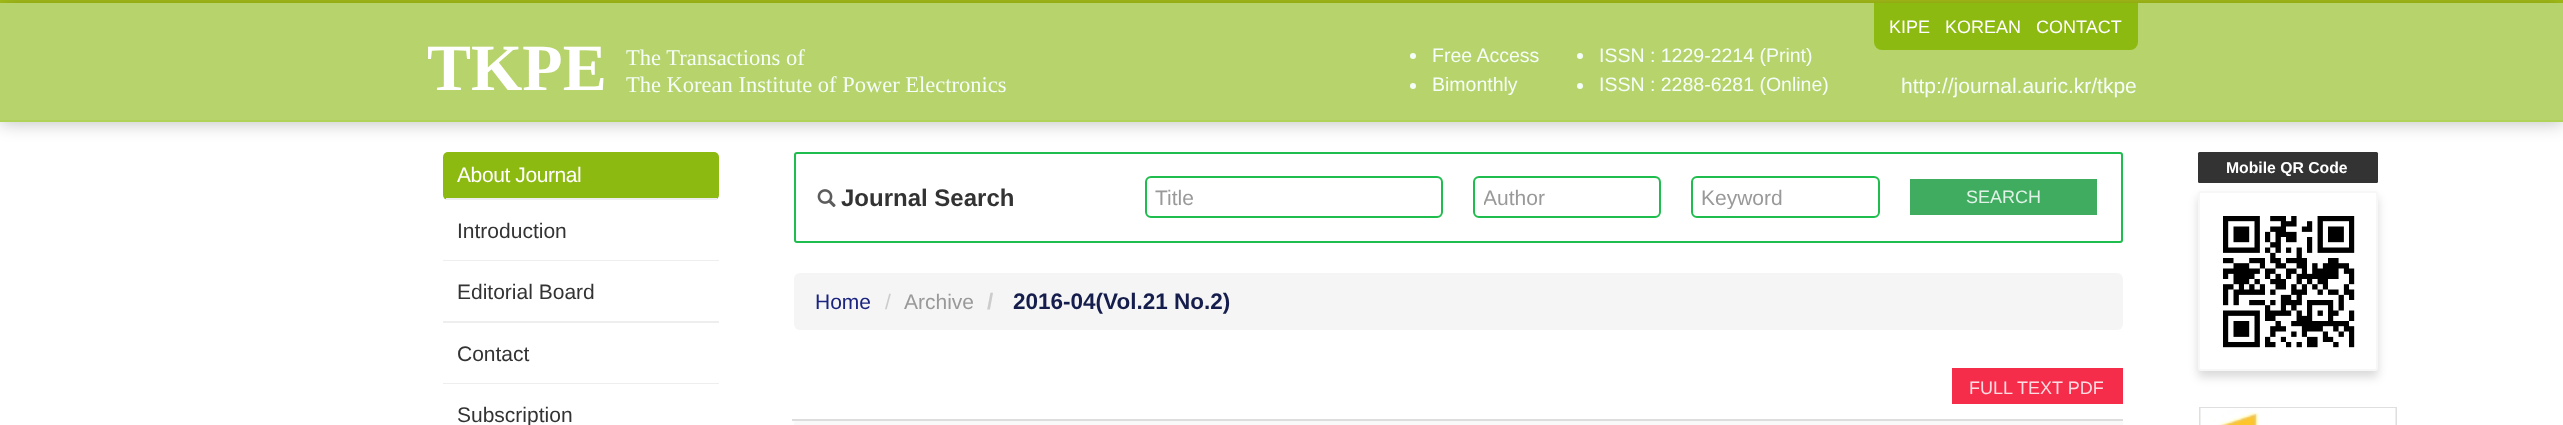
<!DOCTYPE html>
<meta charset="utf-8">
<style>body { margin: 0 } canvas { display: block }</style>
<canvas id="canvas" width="2563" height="425"></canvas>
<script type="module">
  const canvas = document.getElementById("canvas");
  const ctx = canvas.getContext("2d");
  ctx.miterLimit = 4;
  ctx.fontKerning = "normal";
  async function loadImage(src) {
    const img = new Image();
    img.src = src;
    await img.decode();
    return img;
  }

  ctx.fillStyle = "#ffffff";
  ctx.fillRect(0, 0, 2563, 425);
  ctx.fillStyle = "#a6c018";
  ctx.fillRect(0, 0, 2563, 3);
  ctx.fillStyle = "rgba(0, 0, 0, 0.25)";
  ctx.filter = "blur(9px)";
  ctx.beginPath();
  ctx.rect(0, 5, 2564, 118);
  ctx.fill();
  ctx.filter = "none";
  ctx.fillStyle = "#b7d36c";
  ctx.fillRect(0, 3, 2563, 117);
  ctx.fillStyle = "#b1d259";
  ctx.fillRect(0, 120, 2563, 2);
  ctx.fillStyle = "#8dba11";
  ctx.beginPath();
  ctx.roundRect(1874, 3, 264, 47, [0, 0, 8, 8]);
  ctx.fill();
  ctx.font = "18px Liberation Sans";
  ctx.fillStyle = "#ffffff";
  ctx.fillText("KIPE", 1889, 33);
  ctx.fillText("KOREAN", 1945, 33);
  ctx.fillText("CONTACT", 2036, 33);
  ctx.font = "bold 66px Liberation Serif";
  ctx.fillText("TKPE", 427, 90);
  ctx.font = "22.5px Liberation Serif";
  ctx.fillStyle = "#f5fef8";
  ctx.fillText("The Transactions of", 626, 65);
  ctx.fillText("The Korean Institute of Power Electronics", 626, 92);
  ctx.beginPath();
  ctx.arc(1413, 56, 3, 0, Math.PI * 2);
  ctx.fill();
  ctx.font = "19.5px Liberation Sans";
  ctx.fillText("Free Access", 1432, 62);
  ctx.beginPath();
  ctx.arc(1413, 86, 3, 0, Math.PI * 2);
  ctx.fill();
  ctx.fillText("Bimonthly", 1432, 91);
  ctx.beginPath();
  ctx.arc(1580, 56, 3, 0, Math.PI * 2);
  ctx.fill();
  ctx.fillText("ISSN : 1229-2214 (Print)", 1599, 62);
  ctx.beginPath();
  ctx.arc(1580, 86, 3, 0, Math.PI * 2);
  ctx.fill();
  ctx.fillText("ISSN : 2288-6281 (Online)", 1599, 91);
  ctx.font = "21px Liberation Sans";
  ctx.fillText("http://journal.auric.kr/tkpe", 1901, 93);
  ctx.fillStyle = "#8dba11";
  ctx.beginPath();
  ctx.roundRect(443, 152, 276, 48, 5);
  ctx.fill();
  ctx.fillStyle = "#eeeeee";
  ctx.fillRect(446, 198, 271, 2);
  ctx.letterSpacing = "-0.4px";
  ctx.fillStyle = "#ffffff";
  ctx.fillText("About Journal", 457, 182);
  ctx.fillStyle = "#eeeeee";
  ctx.fillRect(443, 260, 276, 1);
  ctx.letterSpacing = "0px";
  ctx.fillStyle = "#333333";
  ctx.fillText("Introduction", 457, 238);
  ctx.fillStyle = "#eeeeee";
  ctx.fillRect(443, 321, 276, 2);
  ctx.fillStyle = "#333333";
  ctx.fillText("Editorial Board", 457, 299);
  ctx.fillStyle = "#eeeeee";
  ctx.fillRect(443, 383, 276, 1);
  ctx.fillStyle = "#333333";
  ctx.fillText("Contact", 457, 361);
  ctx.fillText("Subscription", 457, 422);
  ctx.beginPath();
  ctx.roundRect(795, 153, 1327, 89, 2);
  ctx.strokeStyle = "#1fbd4e";
  ctx.lineWidth = 2;
  ctx.stroke();
  ctx.drawImage(await loadImage("img1.png"), 817, 189, 19, 19);
  ctx.font = "bold 24px Liberation Sans";
  ctx.fillText("Journal Search", 841, 206);
  ctx.fillStyle = "#ececec";
  ctx.beginPath();
  ctx.moveTo(1150, 178);
  ctx.lineTo(1437, 178);
  ctx.bezierCurveTo(1439, 178, 1442, 181, 1442, 183);
  ctx.lineTo(1442, 182);
  ctx.bezierCurveTo(1442, 179, 1440, 177, 1437, 177);
  ctx.lineTo(1151, 177);
  ctx.bezierCurveTo(1148, 177, 1146, 179, 1146, 182);
  ctx.lineTo(1146, 183);
  ctx.bezierCurveTo(1146, 181, 1148, 178, 1150, 178);
  ctx.closePath();
  ctx.fill();
  ctx.beginPath();
  ctx.roundRect(1146, 177, 296, 40, 5);
  ctx.stroke();
  ctx.font = "21px Liberation Sans";
  ctx.fillStyle = "#999999";
  ctx.fillText("Title", 1155, 205);
  ctx.fillStyle = "#ececec";
  ctx.beginPath();
  ctx.moveTo(1479, 178);
  ctx.lineTo(1654, 178);
  ctx.bezierCurveTo(1657, 178, 1659, 181, 1659, 183);
  ctx.lineTo(1659, 182);
  ctx.bezierCurveTo(1659, 179, 1657, 177, 1654, 177);
  ctx.lineTo(1480, 177);
  ctx.bezierCurveTo(1478, 177, 1476, 178, 1475, 180);
  ctx.bezierCurveTo(1476, 179, 1478, 178, 1479, 178);
  ctx.closePath();
  ctx.fill();
  ctx.beginPath();
  ctx.roundRect(1474, 177, 186, 40, 5);
  ctx.stroke();
  ctx.save();
  ctx.beginPath();
  ctx.rect(1484, 185, 166, 24);
  ctx.clip();
  ctx.fillStyle = "#999999";
  ctx.fillText("Author", 1483, 205);
  ctx.restore();
  ctx.beginPath();
  ctx.moveTo(1696, 178);
  ctx.lineTo(1874, 178);
  ctx.bezierCurveTo(1876, 178, 1878, 181, 1878, 183);
  ctx.bezierCurveTo(1878, 180, 1877, 178, 1874, 177);
  ctx.lineTo(1696, 177);
  ctx.bezierCurveTo(1693, 178, 1692, 180, 1692, 183);
  ctx.bezierCurveTo(1692, 181, 1694, 178, 1696, 178);
  ctx.closePath();
  ctx.fill();
  ctx.beginPath();
  ctx.roundRect(1692, 177, 187, 40, 5);
  ctx.stroke();
  ctx.save();
  ctx.beginPath();
  ctx.rect(1701, 185, 168, 24);
  ctx.clip();
  ctx.fillStyle = "#999999";
  ctx.fillText("Keyword", 1701, 205);
  ctx.restore();
  ctx.fillStyle = "#3fac60";
  ctx.fillRect(1910, 179, 187, 36);
  ctx.font = "18px Liberation Sans";
  ctx.fillStyle = "#e0f2e6";
  ctx.fillText("SEARCH", 1966, 203);
  ctx.fillStyle = "#f5f5f5";
  ctx.beginPath();
  ctx.roundRect(794, 273, 1329, 57, 6);
  ctx.fill();
  ctx.font = "21px Liberation Sans";
  ctx.fillStyle = "#1a237e";
  ctx.fillText("Home", 815, 309);
  ctx.fillStyle = "#cccccc";
  ctx.fillText("/", 885, 309);
  ctx.fillStyle = "#999999";
  ctx.fillText("Archive", 904, 309);
  ctx.font = "bold 22.5px Liberation Sans";
  ctx.fillStyle = "#cccccc";
  ctx.fillText("/", 987, 309);
  ctx.fillStyle = "#151d4c";
  ctx.fillText("2016-04(Vol.21 No.2)", 1013, 309);
  ctx.fillStyle = "#f52c4a";
  ctx.fillRect(1952, 368, 171, 36);
  ctx.font = "18px Liberation Sans";
  ctx.fillStyle = "#fddde2";
  ctx.fillText("FULL TEXT PDF", 1969, 394);
  ctx.fillStyle = "#f9f9f9";
  ctx.fillRect(794, 421, 1329, 4);
  ctx.fillStyle = "#dddddd";
  ctx.fillRect(792, 419, 1331, 2);
  ctx.fillStyle = "#333333";
  ctx.beginPath();
  ctx.roundRect(2198, 152, 180, 31, 1.5);
  ctx.fill();
  ctx.font = "bold 15.75px Liberation Sans";
  ctx.fillStyle = "#ffffff";
  ctx.fillText("Mobile QR Code", 2226, 173);
  ctx.fillStyle = "rgba(0, 0, 0, 0.15)";
  ctx.filter = "blur(5px)";
  ctx.beginPath();
  ctx.roundRect(2198, 197, 180, 180, 3);
  ctx.fill();
  ctx.filter = "none";
  ctx.fillStyle = "#ffffff";
  ctx.beginPath();
  ctx.roundRect(2199, 192, 178, 178, 2);
  ctx.fill();
  ctx.strokeStyle = "#f7f7f7";
  ctx.stroke();
  ctx.drawImage(await loadImage("img2.png"), 2223, 216, 132, 132);
  ctx.strokeStyle = "#dfdfdf";
  ctx.strokeRect(2200, 408, 196, 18);
  ctx.drawImage(await loadImage("img3.png"), 2200, 408, 196, 17);
</script>
